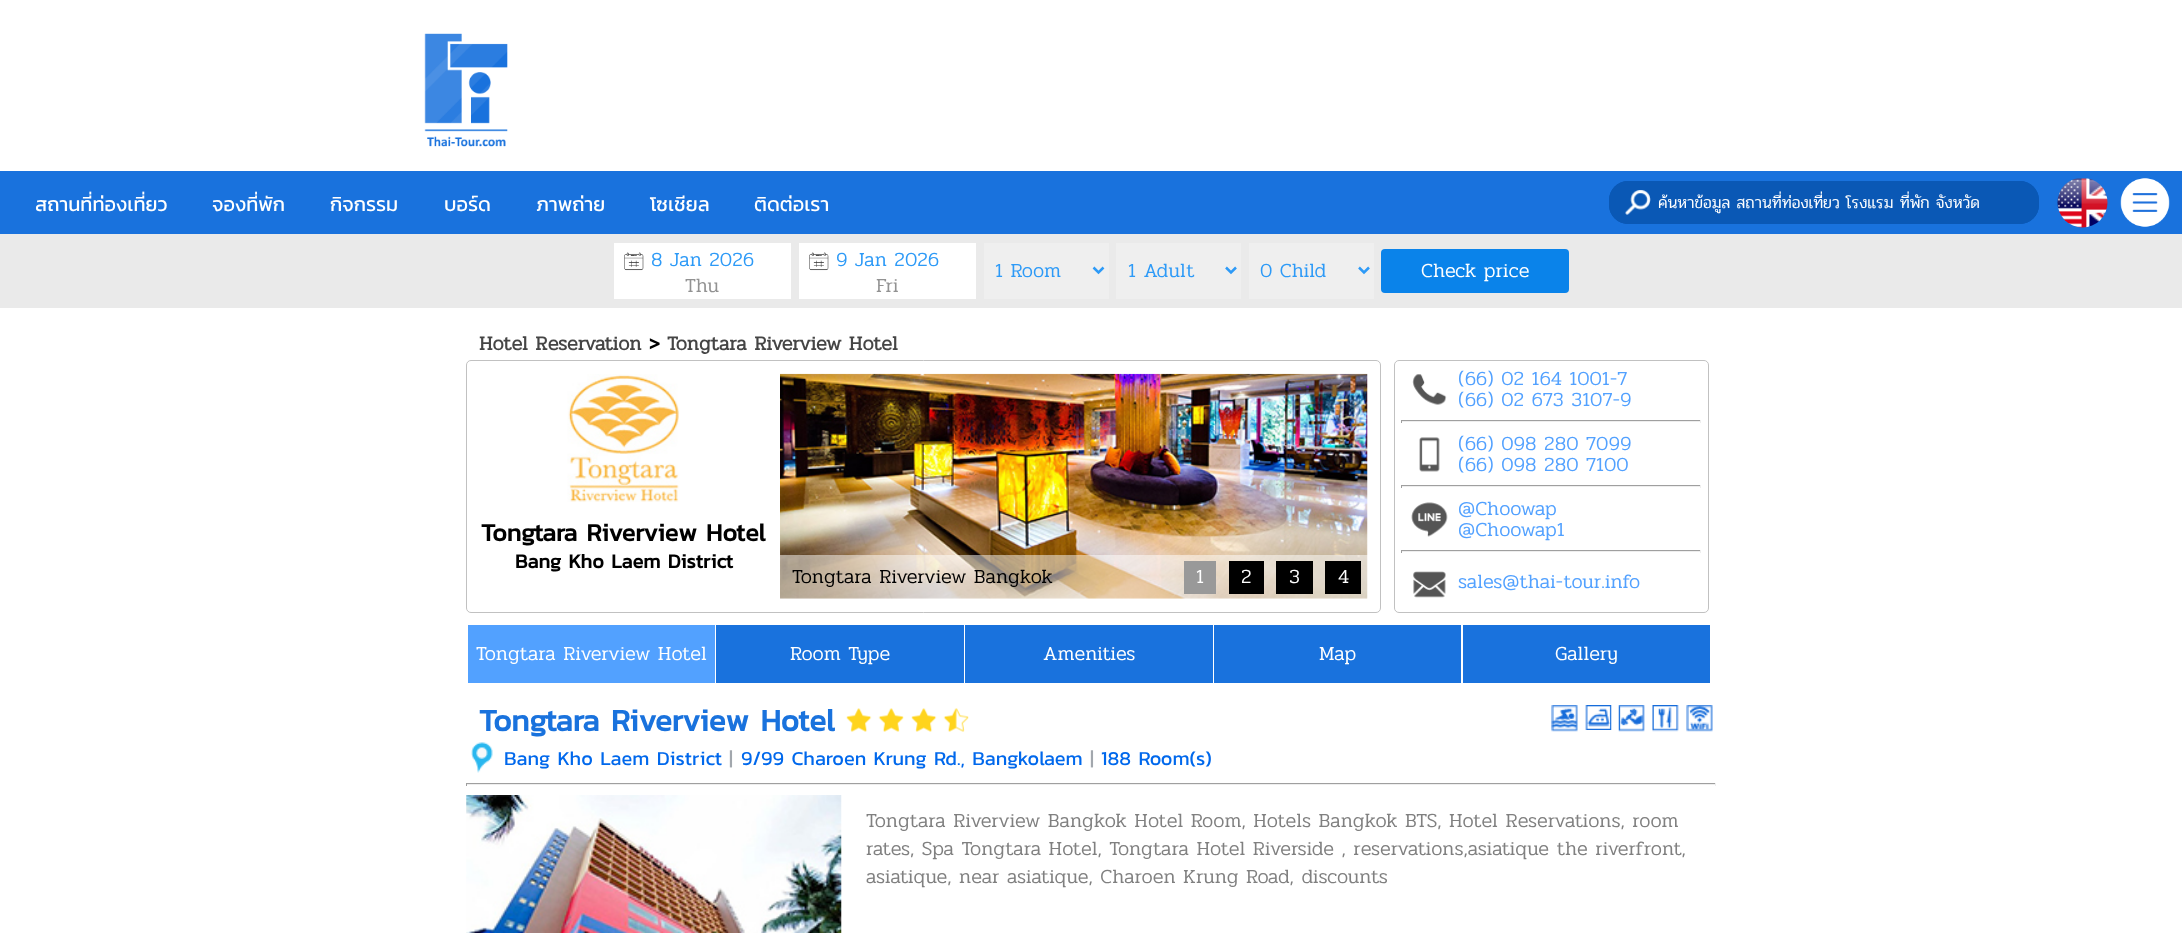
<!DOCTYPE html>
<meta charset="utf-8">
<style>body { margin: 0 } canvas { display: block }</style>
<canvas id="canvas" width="2182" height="933"></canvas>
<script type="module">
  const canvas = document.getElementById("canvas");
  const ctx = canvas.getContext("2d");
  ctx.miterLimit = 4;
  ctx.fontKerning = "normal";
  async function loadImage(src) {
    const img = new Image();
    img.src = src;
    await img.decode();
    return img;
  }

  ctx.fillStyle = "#ffffff";
  ctx.fillRect(0, 0, 2182, 933);
  ctx.drawImage(await loadImage("img1.png"), 424, 33, 84, 114);
  ctx.fillStyle = "#1972dd";
  ctx.fillRect(0, 171, 2182, 63);
  ctx.font = "20px Kanit";
  ctx.fillStyle = "#ffffff";
  ctx.fillText("สถานที่ท่องเที่ยว", 35, 211);
  ctx.fillText("จองที่พัก", 212, 211);
  ctx.fillText("กิจกรรม", 330, 211);
  ctx.fillText("บอร์ด", 444, 211);
  ctx.fillText("ภาพถ่าย", 536, 211);
  ctx.fillText("โซเชียล", 650, 211);
  ctx.fillText("ติดต่อเรา", 754, 211);
  ctx.fillStyle = "#0a58b5";
  ctx.beginPath();
  ctx.roundRect(1609, 181, 430, 43, 19);
  ctx.fill();
  ctx.drawImage(await loadImage("img2.png"), 1625, 190, 26, 25);
  ctx.beginPath();
  ctx.roundRect(1609.5, 181.5, 429, 42, 18.5);
  ctx.strokeStyle = "#0a58b5";
  ctx.stroke();
  ctx.save();
  ctx.beginPath();
  ctx.rect(1658, 189, 375, 26);
  ctx.clip();
  ctx.font = "300 16.7px Pridi";
  ctx.fillStyle = "#ffffff";
  ctx.fillText("ค้นหาข้อมูล สถานที่ท่องเที่ยว โรงแรม ที่พัก จังหวัด", 1658, 208);
  ctx.restore();
  ctx.drawImage(await loadImage("img3.png"), 2057, 178, 51, 50);
  ctx.drawImage(await loadImage("img4.png"), 2120, 178, 50, 49);
  ctx.fillStyle = "#eaeaea";
  ctx.fillRect(0, 234, 2182, 74);
  ctx.fillStyle = "#ffffff";
  ctx.fillRect(614, 243, 177, 56);
  ctx.drawImage(await loadImage("img5.png"), 624, 252, 20, 19);
  ctx.font = "300 20px Pridi";
  ctx.fillStyle = "#2d9af7";
  ctx.fillText("8 Jan 2026", 651, 266);
  ctx.fillStyle = "#929292";
  ctx.fillText("Thu", 685, 292);
  ctx.fillStyle = "#ffffff";
  ctx.fillRect(799, 243, 177, 56);
  ctx.drawImage(await loadImage("img6.png"), 809, 252, 20, 19);
  ctx.fillStyle = "#2d9af7";
  ctx.fillText("9 Jan 2026", 836, 266);
  ctx.fillStyle = "#929292";
  ctx.fillText("Fri", 876, 292);
  ctx.fillStyle = "#efefef";
  ctx.fillRect(984, 243, 125, 56);
  ctx.beginPath();
  ctx.moveTo(1093.5, 267.5);
  ctx.lineTo(1098.5, 272.5);
  ctx.lineTo(1103.5, 267.5);
  ctx.strokeStyle = "#2d9af7";
  ctx.lineWidth = 2.5;
  ctx.stroke();
  ctx.fillStyle = "#2d9af7";
  ctx.fillText("1 Room", 995, 277);
  ctx.fillStyle = "#efefef";
  ctx.fillRect(1116, 243, 125, 56);
  ctx.beginPath();
  ctx.moveTo(1226, 267.5);
  ctx.lineTo(1231, 272.5);
  ctx.lineTo(1236, 267.5);
  ctx.stroke();
  ctx.fillStyle = "#2d9af7";
  ctx.fillText("1 Adult", 1128, 277);
  ctx.fillStyle = "#efefef";
  ctx.fillRect(1249, 243, 125, 56);
  ctx.beginPath();
  ctx.moveTo(1359, 267.5);
  ctx.lineTo(1364, 272.5);
  ctx.lineTo(1369, 267.5);
  ctx.stroke();
  ctx.fillStyle = "#2d9af7";
  ctx.fillText("0 Child", 1260, 277);
  ctx.fillStyle = "#0a83ea";
  ctx.beginPath();
  ctx.roundRect(1381, 249, 188, 44, 4);
  ctx.fill();
  ctx.fillStyle = "#ffffff";
  ctx.fillText("Check price", 1421, 277);
  ctx.font = "bold 20px Pridi";
  ctx.fillStyle = "#454545";
  ctx.fillText("Hotel Reservation", 479, 350);
  ctx.font = "bold 20px Kanit";
  ctx.fillStyle = "#000000";
  ctx.fillText(">", 649, 350);
  ctx.font = "bold 20px Pridi";
  ctx.fillStyle = "#454545";
  ctx.fillText("Tongtara Riverview Hotel", 667, 350);
  ctx.beginPath();
  ctx.roundRect(466.5, 360.5, 914, 252, 4.5);
  ctx.strokeStyle = "#c1c1c1";
  ctx.lineWidth = 1;
  ctx.stroke();
  ctx.drawImage(await loadImage("img7.png"), 567, 374, 113, 128);
  ctx.font = "bold 25px Kanit";
  ctx.fillStyle = "#000000";
  ctx.fillText("Tongtara Riverview Hotel", 481, 541);
  ctx.font = "bold 20px Kanit";
  ctx.fillText("Bang Kho Laem District", 515, 568);
  ctx.drawImage(await loadImage("img8.png"), 780, 373, 588, 226);
  ctx.fillStyle = "rgba(255, 255, 255, 0.5)";
  ctx.fillRect(780, 555, 588, 44);
  ctx.font = "300 20px Pridi";
  ctx.fillStyle = "#000000";
  ctx.fillText("Tongtara Riverview Bangkok", 792, 583);
  ctx.fillStyle = "#999999";
  ctx.fillRect(1184, 561, 32, 33);
  ctx.fillStyle = "#ffffff";
  ctx.fillText("1", 1196, 583);
  ctx.fillStyle = "#000000";
  ctx.fillRect(1229, 561, 35, 33);
  ctx.fillStyle = "#ffffff";
  ctx.fillText("2", 1241, 583);
  ctx.fillStyle = "#000000";
  ctx.fillRect(1276, 561, 37, 33);
  ctx.fillStyle = "#ffffff";
  ctx.fillText("3", 1289, 583);
  ctx.fillStyle = "#000000";
  ctx.fillRect(1325, 561, 36, 33);
  ctx.fillStyle = "#ffffff";
  ctx.fillText("4", 1338, 583);
  ctx.beginPath();
  ctx.roundRect(1394.5, 360.5, 314, 252, 4.5);
  ctx.stroke();
  ctx.drawImage(await loadImage("img9.png"), 1412, 374, 35, 31);
  ctx.fillStyle = "#52a1ff";
  ctx.fillText("(66) 02 164 1001-7", 1458, 385);
  ctx.fillText("(66) 02 673 3107-9", 1458, 406);
  ctx.fillStyle = "#9f9f9f";
  ctx.fillRect(1401, 420, 300, 1);
  ctx.fillStyle = "#eeeeee";
  ctx.fillRect(1700, 420, 1, 3);
  ctx.fillRect(1401, 421, 300, 1);
  ctx.fillStyle = "#9f9f9f";
  ctx.fillRect(1401, 420, 1, 3);
  ctx.drawImage(await loadImage("img10.png"), 1419, 437, 21, 35);
  ctx.fillStyle = "#52a1ff";
  ctx.fillText("(66) 098 280 7099", 1458, 450);
  ctx.fillText("(66) 098 280 7100", 1458, 471);
  ctx.fillStyle = "#9f9f9f";
  ctx.fillRect(1401, 485, 300, 1);
  ctx.fillStyle = "#eeeeee";
  ctx.fillRect(1700, 485, 1, 3);
  ctx.fillRect(1401, 486, 300, 1);
  ctx.fillStyle = "#9f9f9f";
  ctx.fillRect(1401, 485, 1, 3);
  ctx.drawImage(await loadImage("img11.png"), 1411, 502, 37, 35);
  ctx.fillStyle = "#52a1ff";
  ctx.fillText("@Choowap", 1458, 515);
  ctx.fillText("@Choowap1", 1458, 536);
  ctx.fillStyle = "#9f9f9f";
  ctx.fillRect(1401, 550, 300, 1);
  ctx.fillStyle = "#eeeeee";
  ctx.fillRect(1700, 550, 1, 3);
  ctx.fillRect(1401, 551, 300, 1);
  ctx.fillStyle = "#9f9f9f";
  ctx.fillRect(1401, 550, 1, 3);
  ctx.drawImage(await loadImage("img12.png"), 1413, 571, 33, 27);
  ctx.fillStyle = "#52a1ff";
  ctx.fillText("sales@thai-tour.info", 1458, 588);
  ctx.fillRect(468, 625, 247, 58);
  ctx.fillStyle = "#ffffff";
  ctx.fillText("Tongtara Riverview Hotel", 476, 660);
  ctx.fillStyle = "#1972dd";
  ctx.fillRect(716, 625, 248, 58);
  ctx.fillStyle = "#ffffff";
  ctx.fillText("Room Type", 790, 660);
  ctx.fillStyle = "#1972dd";
  ctx.fillRect(965, 625, 248, 58);
  ctx.fillStyle = "#ffffff";
  ctx.fillText("Amenities", 1043, 660);
  ctx.fillStyle = "#1972dd";
  ctx.fillRect(1214, 625, 247, 58);
  ctx.fillStyle = "#ffffff";
  ctx.fillText("Map", 1319, 660);
  ctx.fillStyle = "#1972dd";
  ctx.fillRect(1463, 625, 247, 58);
  ctx.fillStyle = "#ffffff";
  ctx.fillText("Gallery", 1555, 660);
  ctx.font = "bold 31.25px Kanit";
  ctx.fillStyle = "#1972dd";
  ctx.fillText("Tongtara Riverview Hotel", 479, 731);
  ctx.drawImage(await loadImage("img13.png"), 846, 708, 26, 24);
  ctx.drawImage(await loadImage("img14.png"), 878, 708, 26, 24);
  ctx.drawImage(await loadImage("img13.png"), 911, 708, 26, 24);
  ctx.drawImage(await loadImage("img15.png"), 943, 708, 26, 24);
  ctx.drawImage(await loadImage("img16.png"), 1551, 705, 27, 27);
  ctx.drawImage(await loadImage("img17.png"), 1585, 705, 27, 25);
  ctx.drawImage(await loadImage("img18.png"), 1618, 705, 27, 27);
  ctx.drawImage(await loadImage("img19.png"), 1652, 705, 27, 27);
  ctx.drawImage(await loadImage("img20.png"), 1686, 705, 27, 27);
  ctx.drawImage(await loadImage("img21.png"), 471, 742, 22, 31);
  ctx.font = "20px Kanit";
  ctx.fillStyle = "#0068ec";
  ctx.fillText("Bang Kho Laem District", 504, 765);
  ctx.fillStyle = "#a2a7ad";
  ctx.fillText("|", 729, 765);
  ctx.fillStyle = "#0068ec";
  ctx.fillText("9/99 Charoen Krung Rd., Bangkolaem", 741, 765);
  ctx.fillStyle = "#a2a7ad";
  ctx.fillText("|", 1090, 765);
  ctx.fillStyle = "#0068ec";
  ctx.fillText("188 Room(s)", 1101, 765);
  ctx.fillStyle = "#9f9f9f";
  ctx.fillRect(466, 783, 1250, 1);
  ctx.fillStyle = "#eeeeee";
  ctx.fillRect(1715, 783, 1, 3);
  ctx.fillRect(466, 784, 1250, 1);
  ctx.fillStyle = "#9f9f9f";
  ctx.fillRect(466, 783, 1, 3);
  ctx.drawImage(await loadImage("img22.png"), 466, 795, 376, 138);
  ctx.font = "300 20px Pridi";
  ctx.fillStyle = "#808080";
  ctx.fillText("Tongtara Riverview Bangkok Hotel Room, Hotels Bangkok BTS, Hotel Reservations, room", 866, 827);
  ctx.fillText("rates, Spa Tongtara Hotel, Tongtara Hotel Riverside , reservations,asiatique the riverfront,", 866, 855);
  ctx.fillText("asiatique, near asiatique, Charoen Krung Road, discounts", 866, 883);
</script>
